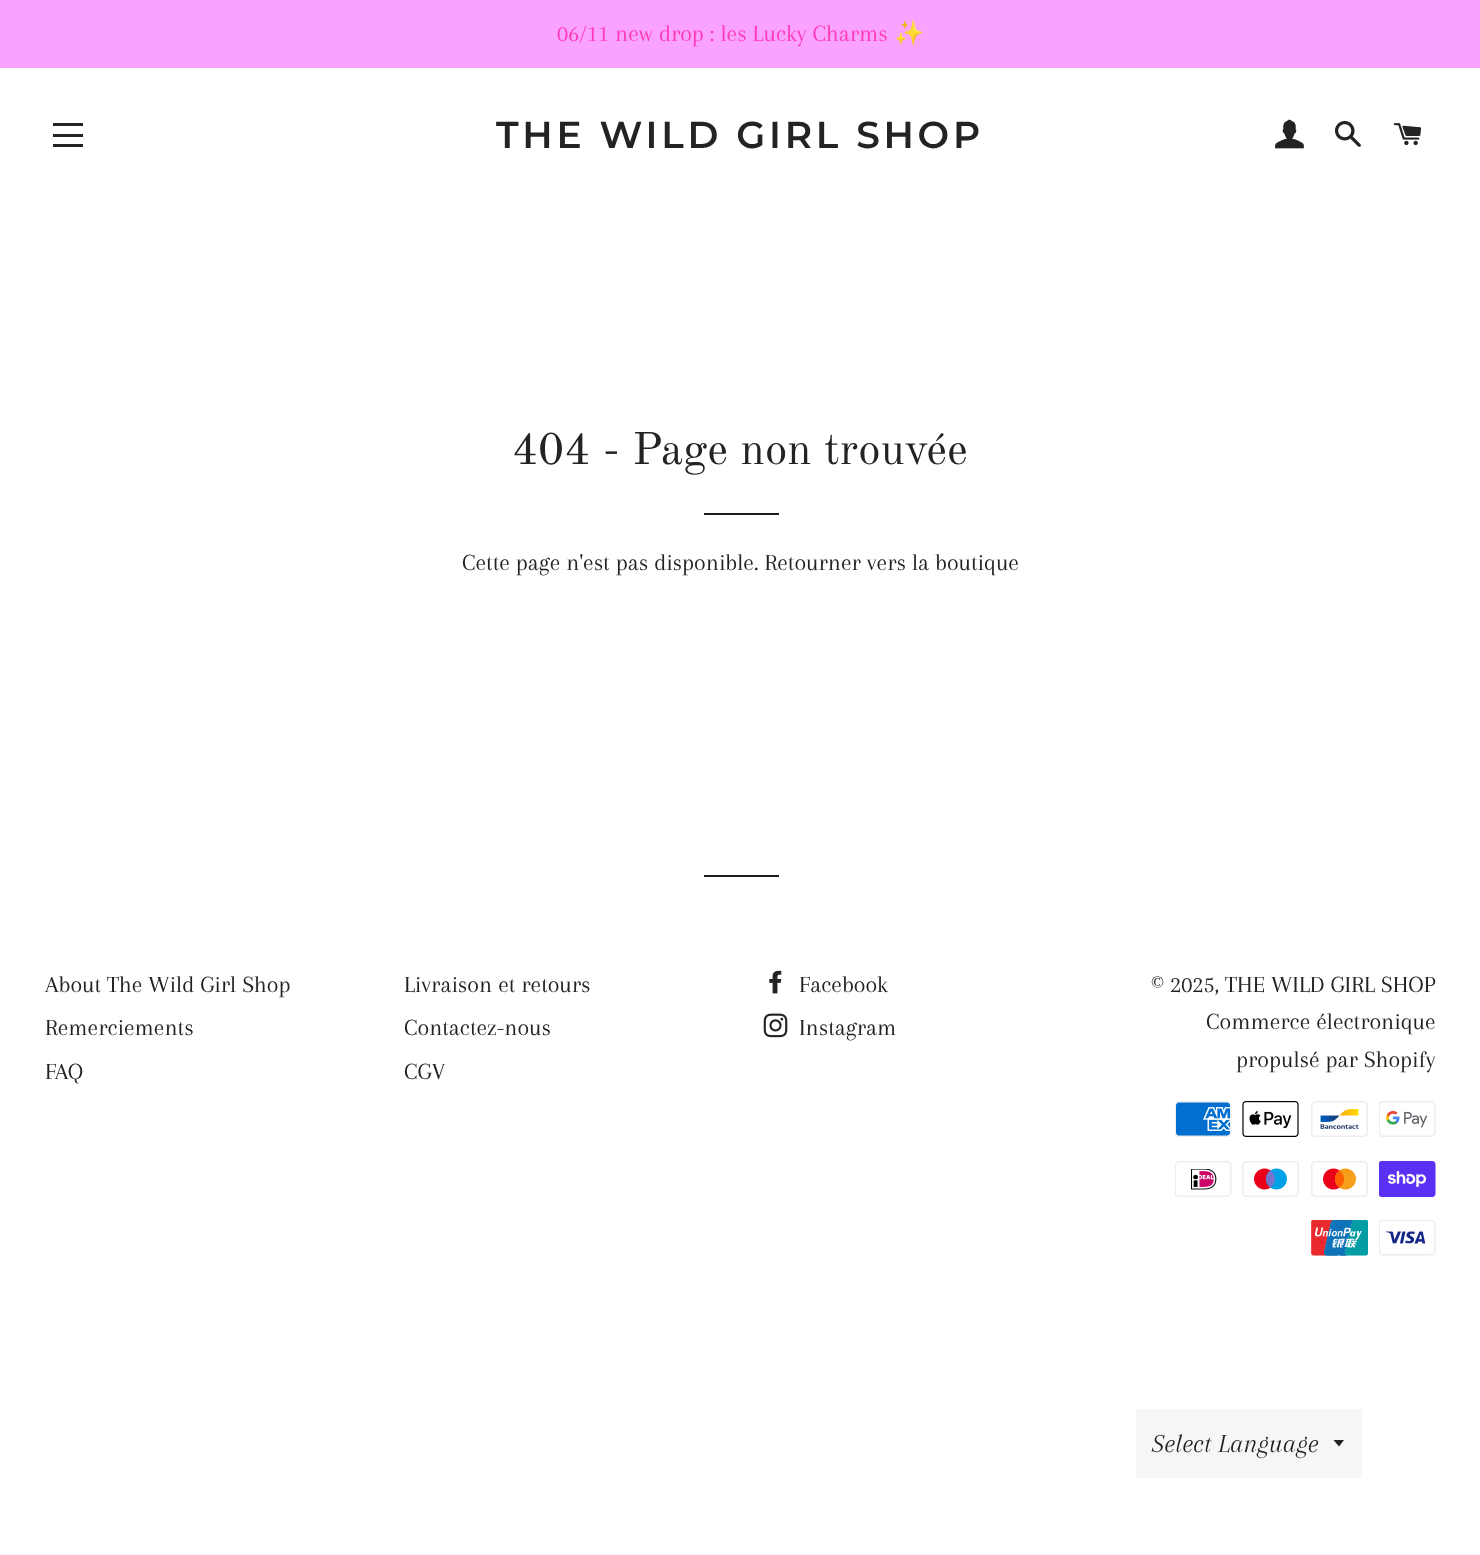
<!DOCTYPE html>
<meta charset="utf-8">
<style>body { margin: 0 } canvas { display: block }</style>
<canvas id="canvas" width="1480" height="1555"></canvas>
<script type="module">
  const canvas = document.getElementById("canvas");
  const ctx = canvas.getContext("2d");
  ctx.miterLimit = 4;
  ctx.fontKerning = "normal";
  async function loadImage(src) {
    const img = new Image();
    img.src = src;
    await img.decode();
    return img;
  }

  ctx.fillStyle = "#ffffff";
  ctx.fillRect(0, 0, 1480, 1555);
  ctx.fillStyle = "#f9a3ff";
  ctx.fillRect(0, 0, 1480, 68);
  ctx.font = "24px Arapey";
  ctx.fillStyle = "#ff39b4";
  ctx.fillText("06/11 new drop : les Lucky Charms", 557, 41);
  ctx.font = "24px Noto Color Emoji";
  ctx.fillText("✨", 894, 41);
  ctx.fillStyle = "#222323";
  ctx.fillRect(53, 123, 30, 3);
  ctx.fillRect(53, 134, 30, 3);
  ctx.fillRect(53, 144, 30, 3);
  ctx.letterSpacing = "3.75px";
  ctx.font = "600 37.5px Montserrat";
  ctx.fillText("THE WILD GIRL SHOP", 496, 148);
  ctx.drawImage(await loadImage("img1.png"), 1275, 119, 29, 30);
  ctx.drawImage(await loadImage("img2.png"), 1334, 121, 27, 26);
  ctx.drawImage(await loadImage("img3.png"), 1393, 123, 29, 23);
  ctx.letterSpacing = "0px";
  ctx.font = "45px Old Standard TT";
  ctx.fillText("404 - Page non trouvée", 512, 464);
  ctx.fillStyle = "#1c1d1d";
  ctx.fillRect(704, 513, 75, 2);
  ctx.font = "24px Arapey";
  ctx.fillStyle = "#222323";
  ctx.fillText("Cette page n'est pas disponible. Retourner vers la boutique", 462, 570);
  ctx.fillStyle = "#1c1d1d";
  ctx.fillRect(704, 875, 75, 2);
  ctx.fillStyle = "#222323";
  ctx.fillText("About The Wild Girl Shop", 45, 992);
  ctx.fillText("Remerciements", 45, 1035);
  ctx.fillText("FAQ", 45, 1079);
  ctx.fillText("Livraison et retours", 404, 992);
  ctx.fillText("Contactez-nous", 404, 1035);
  ctx.fillText("CGV", 404, 1079);
  ctx.drawImage(await loadImage("img4.png"), 769, 970, 13, 24);
  ctx.fillText("Facebook", 799, 992);
  ctx.drawImage(await loadImage("img5.png"), 763, 1013, 25, 25);
  ctx.fillText("Instagram", 799, 1035);
  ctx.fillText("© 2025, THE WILD GIRL SHOP", 1151, 992);
  ctx.fillText("Commerce électronique", 1206, 1029);
  ctx.fillText("propulsé par Shopify", 1236, 1067);
  ctx.drawImage(await loadImage("img6.png"), 1175, 1101, 57, 36);
  ctx.drawImage(await loadImage("img7.png"), 1242, 1101, 57, 36);
  ctx.drawImage(await loadImage("img8.png"), 1311, 1101, 57, 36);
  ctx.drawImage(await loadImage("img9.png"), 1379, 1101, 57, 36);
  ctx.drawImage(await loadImage("img10.png"), 1175, 1161, 57, 36);
  ctx.drawImage(await loadImage("img11.png"), 1242, 1161, 57, 36);
  ctx.drawImage(await loadImage("img12.png"), 1311, 1161, 57, 36);
  ctx.drawImage(await loadImage("img13.png"), 1379, 1161, 57, 36);
  ctx.drawImage(await loadImage("img14.png"), 1311, 1220, 57, 36);
  ctx.drawImage(await loadImage("img15.png"), 1379, 1220, 57, 36);
  ctx.fillStyle = "#f6f6f6";
  ctx.fillRect(1136, 1409, 226, 69);
  ctx.fillStyle = "#222323";
  ctx.beginPath();
  ctx.moveTo(1333.5, 1440);
  ctx.lineTo(1339, 1446.5);
  ctx.lineTo(1344, 1440);
  ctx.closePath();
  ctx.fill();
  ctx.font = "italic 27px Arapey";
  ctx.fillStyle = "#1c1d1d";
  ctx.fillText("Select Language", 1152, 1452);
</script>
